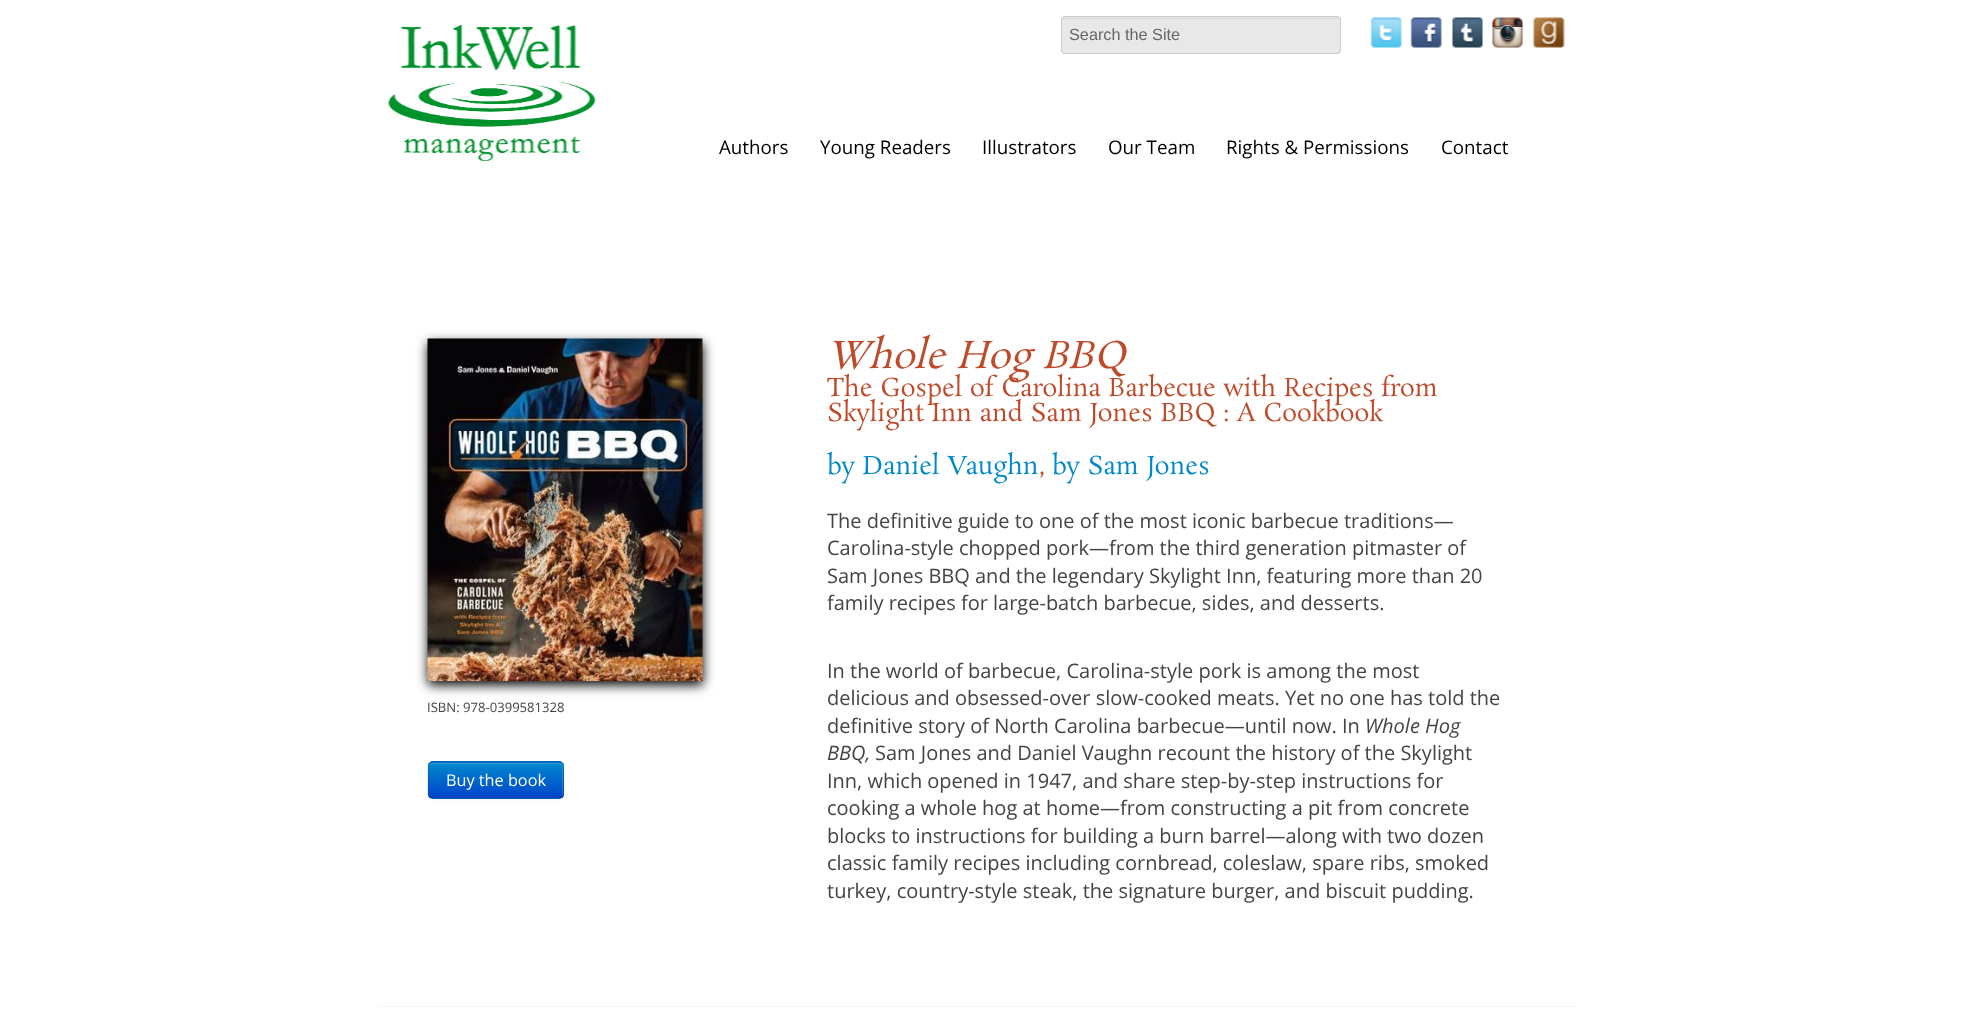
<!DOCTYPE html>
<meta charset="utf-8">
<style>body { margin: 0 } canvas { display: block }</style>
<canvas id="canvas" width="1978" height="1012"></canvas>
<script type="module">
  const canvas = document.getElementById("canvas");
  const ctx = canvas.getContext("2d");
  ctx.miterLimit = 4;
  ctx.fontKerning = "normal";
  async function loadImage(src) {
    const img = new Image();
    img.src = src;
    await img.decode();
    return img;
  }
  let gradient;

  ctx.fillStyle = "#ffffff";
  ctx.fillRect(0, 0, 1978, 1012);
  ctx.drawImage(await loadImage("img1.png"), 388, 25, 208, 136);
  ctx.fillStyle = "#e8e8e8";
  ctx.beginPath();
  ctx.roundRect(1061, 16, 280, 38, 4);
  ctx.fill();
  ctx.fillStyle = "#d7d7d7";
  ctx.beginPath();
  ctx.moveTo(1065, 19);
  ctx.lineTo(1338, 19);
  ctx.bezierCurveTo(1339, 19, 1340, 20, 1340, 21);
  ctx.bezierCurveTo(1340, 20, 1340, 19, 1338, 18);
  ctx.lineTo(1065, 18);
  ctx.lineTo(1063, 20);
  ctx.closePath();
  ctx.fill();
  ctx.beginPath();
  ctx.roundRect(1061.5, 16.5, 279, 37, 3.5);
  ctx.strokeStyle = "#cccccc";
  ctx.stroke();
  ctx.font = "16.25px Liberation Sans";
  ctx.fillStyle = "#666666";
  ctx.fillText("Search the Site", 1069, 40);
  ctx.drawImage(await loadImage("img2.png"), 1370, 17, 32, 31);
  ctx.drawImage(await loadImage("img3.png"), 1410, 17, 32, 31);
  ctx.drawImage(await loadImage("img4.png"), 1452, 17, 31, 31);
  ctx.drawImage(await loadImage("img5.png"), 1492, 17, 31, 31);
  ctx.drawImage(await loadImage("img6.png"), 1533, 17, 32, 31);
  ctx.font = "18.75px Open Sans";
  ctx.fillStyle = "#000000";
  ctx.fillText("Authors", 719, 154);
  ctx.fillText("Young Readers", 820, 154);
  ctx.fillText("Illustrators", 982, 154);
  ctx.fillText("Our Team", 1108, 154);
  ctx.fillText("Rights & Permissions", 1226, 154);
  ctx.fillText("Contact", 1441, 154);
  ctx.filter = "blur(6px)";
  ctx.beginPath();
  ctx.rect(428, 343, 275, 342);
  ctx.fill();
  ctx.filter = "none";
  ctx.drawImage(await loadImage("img7.png"), 427, 338, 276, 343);
  ctx.font = "13.1px Open Sans";
  ctx.fillStyle = "#444444";
  ctx.fillText("ISBN: 978-0399581328", 427, 712);
  ctx.fillStyle = "rgba(0, 0, 0, 0.05)";
  ctx.filter = "blur(1px)";
  ctx.beginPath();
  ctx.roundRect(428, 763, 136, 37, 5);
  ctx.fill();
  ctx.filter = "none";
  ctx.fillStyle = "#006dcc";
  ctx.beginPath();
  ctx.roundRect(428, 761, 136, 38, 5);
  ctx.fill();
  ctx.save();
  ctx.beginPath();
  ctx.roundRect(428, 761, 136, 38, 5);
  ctx.clip();
  gradient = ctx.createLinearGradient(496, 763, 496, 798);
  gradient.addColorStop(0, "#0088cc");
  gradient.addColorStop(1, "#0044cc");
  ctx.fillStyle = gradient;
  ctx.fillRect(428, 763, 136, 35);
  ctx.restore();
  ctx.fillStyle = "rgba(255, 255, 255, 0.2)";
  ctx.beginPath();
  ctx.moveTo(432, 764);
  ctx.lineTo(559, 764);
  ctx.bezierCurveTo(564, 764, 562, 774, 562, 777);
  ctx.lineTo(562, 797);
  ctx.bezierCurveTo(562, 796, 563, 795, 563, 794);
  ctx.lineTo(563, 767);
  ctx.bezierCurveTo(563, 765, 561, 763, 559, 763);
  ctx.lineTo(433, 763);
  ctx.bezierCurveTo(431, 763, 429, 765, 429, 767);
  ctx.lineTo(429, 768);
  ctx.bezierCurveTo(429, 765, 430, 764, 432, 764);
  ctx.closePath();
  ctx.fill();
  ctx.beginPath();
  ctx.moveTo(562, 797);
  ctx.lineTo(559, 798);
  ctx.lineTo(432, 798);
  ctx.lineTo(429.5, 797);
  ctx.strokeStyle = "rgba(0, 0, 0, 0.25)";
  ctx.lineWidth = 1.2;
  ctx.stroke();
  ctx.beginPath();
  ctx.moveTo(429.5, 797);
  ctx.bezierCurveTo(426.5, 794, 428, 787.5, 428, 784.5);
  ctx.bezierCurveTo(428, 757, 423.5, 762, 453.5, 762);
  ctx.lineTo(537.5, 762);
  ctx.bezierCurveTo(567.5, 762, 563, 757, 563, 784.5);
  ctx.bezierCurveTo(563, 787.5, 564.5, 794, 562, 797);
  ctx.strokeStyle = "rgba(0, 0, 0, 0.1)";
  ctx.stroke();
  ctx.font = "16.25px Open Sans";
  ctx.fillStyle = "#ffffff";
  ctx.fillText("Buy the book", 446, 786);
  ctx.font = "italic 37.5px Rosarivo";
  ctx.fillStyle = "#bf4a29";
  ctx.fillText("Whole Hog BBQ", 827, 368);
  ctx.font = "25px Rosarivo";
  ctx.fillText("The Gospel of Carolina Barbecue with Recipes from", 827, 396);
  ctx.fillText("Skylight Inn and Sam Jones BBQ : A Cookbook", 827, 421);
  ctx.fillStyle = "#0088cc";
  ctx.fillText("by Daniel Vaughn", 827, 474);
  ctx.fillStyle = "#bf4a29";
  ctx.fillText(",", 1039, 474);
  ctx.fillStyle = "#0088cc";
  ctx.fillText("by Sam Jones", 1052, 474);
  ctx.font = "20px Open Sans";
  ctx.fillStyle = "#444444";
  ctx.fillText("The definitive guide to one of the most iconic barbecue traditions—", 827, 528);
  ctx.fillText("Carolina-style chopped pork—from the third generation pitmaster of", 827, 555);
  ctx.fillText("Sam Jones BBQ and the legendary Skylight Inn, featuring more than 20", 827, 583);
  ctx.fillText("family recipes for large-batch barbecue, sides, and desserts.", 827, 610);
  ctx.fillText("In the world of barbecue, Carolina-style pork is among the most", 827, 678);
  ctx.fillText("delicious and obsessed-over slow-cooked meats. Yet no one has told the", 827, 705);
  ctx.fillText("definitive story of North Carolina barbecue—until now. In", 827, 733);
  ctx.font = "italic 20px Open Sans";
  ctx.fillText("Whole Hog", 1365, 733);
  ctx.fillText("BBQ,", 827, 760);
  ctx.font = "20px Open Sans";
  ctx.fillText("Sam Jones and Daniel Vaughn recount the history of the Skylight", 875, 760);
  ctx.fillText("Inn, which opened in 1947, and share step-by-step instructions for", 827, 788);
  ctx.fillText("cooking a whole hog at home—from constructing a pit from concrete", 827, 815);
  ctx.fillText("blocks to instructions for building a burn barrel—along with two dozen", 827, 843);
  ctx.fillText("classic family recipes including cornbread, coleslaw, spare ribs, smoked", 827, 870);
  ctx.fillText("turkey, country-style steak, the signature burger, and biscuit pudding.", 827, 898);
  ctx.fillStyle = "#f6f6f6";
  ctx.fillRect(378, 1006, 1200, 1);
</script>
